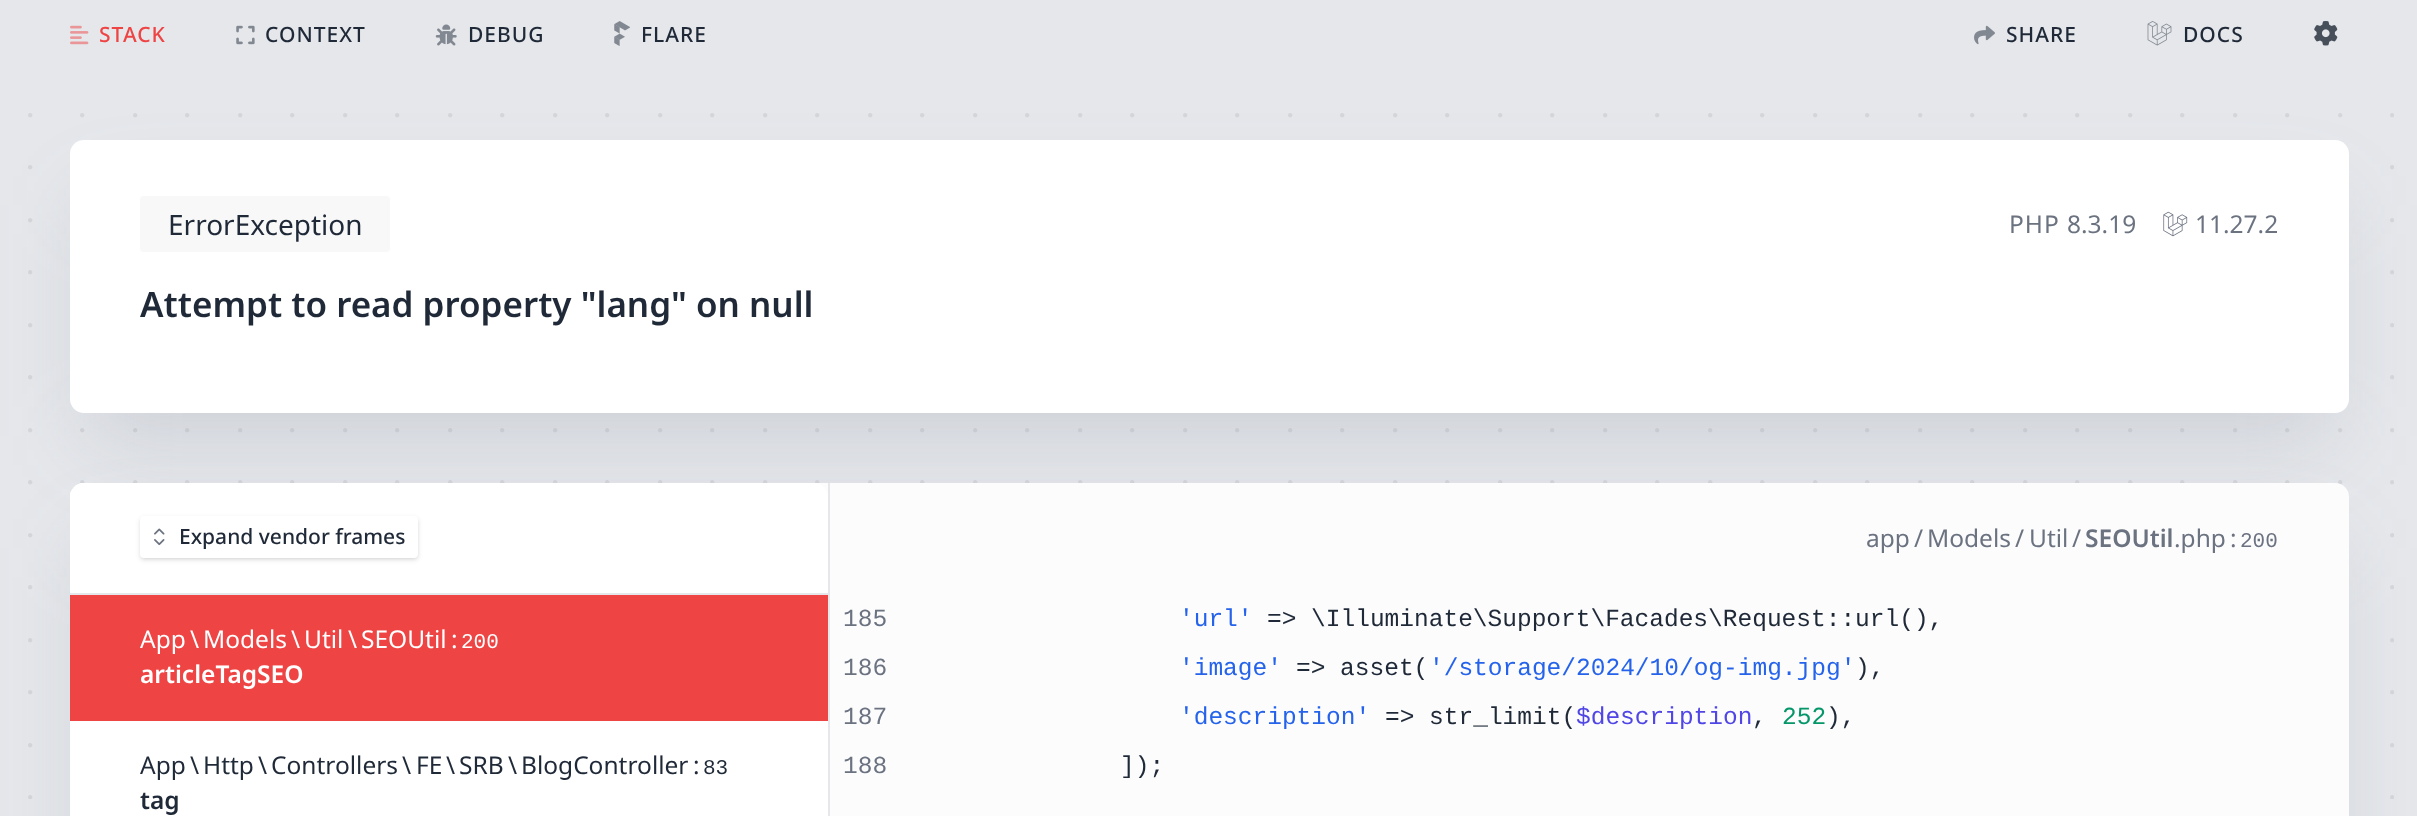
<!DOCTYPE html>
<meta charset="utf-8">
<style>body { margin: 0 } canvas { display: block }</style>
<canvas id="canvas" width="2417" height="816"></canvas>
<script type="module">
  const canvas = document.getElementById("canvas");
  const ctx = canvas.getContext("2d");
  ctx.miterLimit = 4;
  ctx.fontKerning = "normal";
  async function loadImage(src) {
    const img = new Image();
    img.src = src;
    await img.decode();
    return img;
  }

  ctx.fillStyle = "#e5e7eb";
  ctx.fillRect(0, 0, 2417, 816);
  ctx.drawImage(await loadImage("img1.png"), 28, 113, 2366, 686);
  ctx.drawImage(await loadImage("img2.png"), 70, 25, 19, 20);
  ctx.letterSpacing = "1px";
  ctx.font = "500 21px Noto Sans";
  ctx.fillStyle = "#ef4444";
  ctx.fillText("STACK", 99, 42);
  ctx.drawImage(await loadImage("img3.png"), 236, 25, 19, 20);
  ctx.fillStyle = "#1f2937";
  ctx.fillText("CONTEXT", 265, 42);
  ctx.drawImage(await loadImage("img4.png"), 435, 24, 22, 22);
  ctx.fillText("DEBUG", 468, 42);
  ctx.drawImage(await loadImage("img5.png"), 614, 21, 16, 25);
  ctx.fillText("FLARE", 641, 42);
  ctx.drawImage(await loadImage("img6.png"), 1974, 25, 21, 20);
  ctx.fillText("SHARE", 2006, 42);
  ctx.drawImage(await loadImage("img7.png"), 2147, 21, 25, 25);
  ctx.fillText("DOCS", 2183, 42);
  ctx.drawImage(await loadImage("img8.png"), 2314, 21, 24, 25);
  ctx.fillStyle = "rgba(107, 114, 128, 0.2)";
  ctx.filter = "blur(44px)";
  ctx.beginPath();
  ctx.rect(91, 205, 2237, 231);
  ctx.fill();
  ctx.filter = "none";
  ctx.fillStyle = "#ffffff";
  ctx.beginPath();
  ctx.roundRect(70, 140, 2279, 273, 14);
  ctx.fill();
  ctx.fillStyle = "#f8f8f9";
  ctx.beginPath();
  ctx.roundRect(140, 196, 250, 56, 4);
  ctx.fill();
  ctx.letterSpacing = "0px";
  ctx.font = "28px Noto Sans";
  ctx.fillStyle = "#1f2937";
  ctx.fillText("ErrorException", 168, 235);
  ctx.letterSpacing = "1px";
  ctx.font = "24.5px Noto Sans";
  ctx.fillStyle = "#6b7280";
  ctx.fillText("PHP", 2009, 233);
  ctx.letterSpacing = "0px";
  ctx.fillText("8.3.19", 2067, 233);
  ctx.drawImage(await loadImage("img9.png"), 2163, 211, 25, 26);
  ctx.fillText("11.27.2", 2195, 233);
  ctx.font = "600 35px Noto Sans";
  ctx.fillStyle = "#1f2937";
  ctx.fillText("Attempt to read property \"lang\" on null", 140, 317);
  ctx.fillStyle = "rgba(107, 114, 128, 0.2)";
  ctx.filter = "blur(44px)";
  ctx.beginPath();
  ctx.rect(91, 548, 2237, 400);
  ctx.fill();
  ctx.filter = "none";
  ctx.fillStyle = "#fcfcfd";
  ctx.beginPath();
  ctx.roundRect(70, 483, 2279, 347, 14);
  ctx.fill();
  ctx.fillStyle = "#e5e7eb";
  ctx.fillRect(828, 483, 2, 333);
  ctx.fillStyle = "#ffffff";
  ctx.beginPath();
  ctx.moveTo(84, 483);
  ctx.lineTo(814, 483);
  ctx.bezierCurveTo(821.5, 483, 828, 489.5, 828, 497);
  ctx.lineTo(828, 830);
  ctx.lineTo(70, 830);
  ctx.lineTo(70, 497);
  ctx.bezierCurveTo(70, 489.5, 76.5, 483, 84, 483);
  ctx.closePath();
  ctx.fill();
  ctx.beginPath();
  ctx.roundRect(70, 483, 758, 110, [14, 14, 0, 0]);
  ctx.fill();
  ctx.fillStyle = "#e5e7eb";
  ctx.fillRect(70, 593, 758, 2);
  ctx.fillStyle = "rgba(0, 0, 0, 0.1)";
  ctx.filter = "blur(2px)";
  ctx.beginPath();
  ctx.roundRect(142, 520, 275, 38, 2);
  ctx.fill();
  ctx.filter = "none";
  ctx.filter = "blur(2.5px)";
  ctx.beginPath();
  ctx.roundRect(140, 518, 278, 42, 4);
  ctx.fill();
  ctx.filter = "none";
  ctx.fillStyle = "#ffffff";
  ctx.beginPath();
  ctx.roundRect(140, 516, 278, 42, 4);
  ctx.fill();
  ctx.drawImage(await loadImage("img10.png"), 154, 528, 11, 7);
  ctx.drawImage(await loadImage("img11.png"), 154, 539, 11, 7);
  ctx.font = "500 21px Noto Sans";
  ctx.fillStyle = "#1f2937";
  ctx.fillText("Expand vendor frames", 179, 544);
  ctx.fillStyle = "#ef4444";
  ctx.fillRect(70, 595, 758, 126);
  ctx.font = "24.5px Noto Sans";
  ctx.fillStyle = "#ffffff";
  ctx.fillText("App", 140, 648);
  ctx.fillText("\\", 190, 648);
  ctx.fillText("Models", 203, 648);
  ctx.fillText("\\", 291, 648);
  ctx.fillText("Util", 304, 648);
  ctx.fillText("\\", 348, 648);
  ctx.fillText("SEOUtil", 361, 648);
  ctx.fillText(":", 451, 648);
  ctx.font = "21px Liberation Mono";
  ctx.fillText("200", 461, 648);
  ctx.font = "600 24.5px Noto Sans";
  ctx.fillText("articleTagSEO", 140, 683);
  ctx.font = "24.5px Noto Sans";
  ctx.fillStyle = "#1f2937";
  ctx.fillText("App", 140, 774);
  ctx.fillText("\\", 190, 774);
  ctx.fillText("Http", 203, 774);
  ctx.fillText("\\", 258, 774);
  ctx.fillText("Controllers", 271, 774);
  ctx.fillText("\\", 402, 774);
  ctx.fillText("FE", 416, 774);
  ctx.fillText("\\", 446, 774);
  ctx.fillText("SRB", 459, 774);
  ctx.fillText("\\", 508, 774);
  ctx.fillText("BlogController", 521, 774);
  ctx.fillText(":", 693, 774);
  ctx.font = "21px Liberation Mono";
  ctx.fillText("83", 703, 774);
  ctx.font = "600 24.5px Noto Sans";
  ctx.fillText("tag", 140, 809);
  ctx.font = "24.5px Noto Sans";
  ctx.fillStyle = "#6b7280";
  ctx.fillText("app", 1866, 547);
  ctx.fillText("/", 1914, 547);
  ctx.fillText("Models", 1927, 547);
  ctx.fillText("/", 2015, 547);
  ctx.fillText("Util", 2029, 547);
  ctx.fillText("/", 2072, 547);
  ctx.font = "600 24.5px Noto Sans";
  ctx.fillText("SEOUtil", 2085, 547);
  ctx.font = "24.5px Noto Sans";
  ctx.fillText(".php", 2174, 547);
  ctx.fillText(":", 2230, 547);
  ctx.font = "21px Liberation Mono";
  ctx.fillText("200", 2240, 547);
  ctx.font = "24.5px Liberation Mono";
  ctx.fillText("185", 843, 626);
  ctx.fillText("186", 843, 675);
  ctx.fillText("187", 843, 724);
  ctx.fillText("188", 843, 773);
  ctx.fillStyle = "#2563eb";
  ctx.fillText("'url'", 1179, 626);
  ctx.fillStyle = "#1f2937";
  ctx.fillText("=> \\Illuminate\\Support\\Facades\\Request::url(),", 1267, 626);
  ctx.fillStyle = "#2563eb";
  ctx.fillText("'image'", 1179, 675);
  ctx.fillStyle = "#1f2937";
  ctx.fillText("=> asset(", 1296, 675);
  ctx.fillStyle = "#2563eb";
  ctx.fillText("'/storage/2024/10/og-img.jpg'", 1429, 675);
  ctx.fillStyle = "#1f2937";
  ctx.fillText("),", 1855, 675);
  ctx.fillStyle = "#2563eb";
  ctx.fillText("'description'", 1179, 724);
  ctx.fillStyle = "#1f2937";
  ctx.fillText("=> str_limit(", 1385, 724);
  ctx.fillStyle = "#4f46e5";
  ctx.fillText("$description", 1576, 724);
  ctx.fillStyle = "#1f2937";
  ctx.fillText(",", 1752, 724);
  ctx.fillStyle = "#059669";
  ctx.fillText("252", 1782, 724);
  ctx.fillStyle = "#1f2937";
  ctx.fillText("),", 1826, 724);
  ctx.fillText("]);", 1120, 773);
</script>
